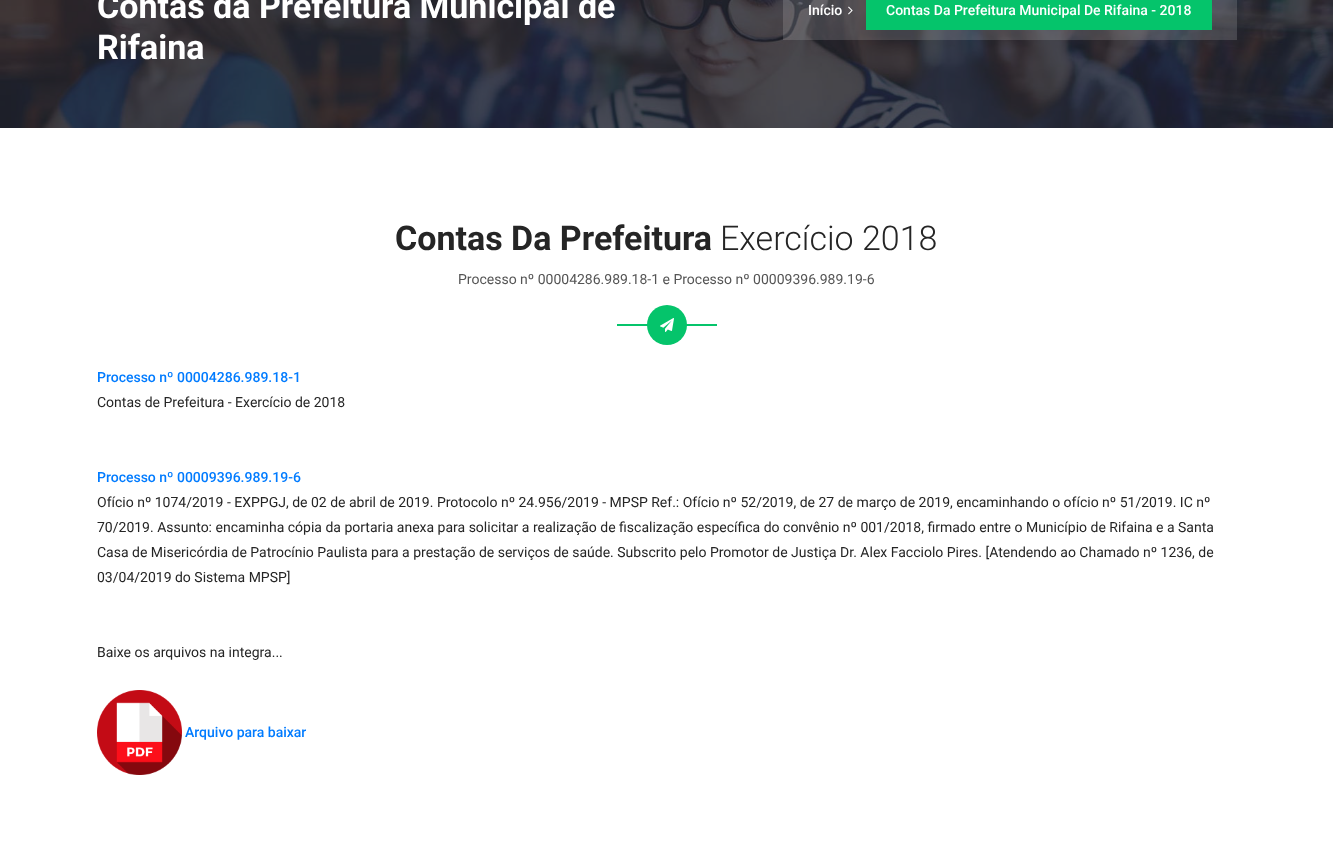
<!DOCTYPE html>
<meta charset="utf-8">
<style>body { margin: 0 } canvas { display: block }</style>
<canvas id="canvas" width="1333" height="863"></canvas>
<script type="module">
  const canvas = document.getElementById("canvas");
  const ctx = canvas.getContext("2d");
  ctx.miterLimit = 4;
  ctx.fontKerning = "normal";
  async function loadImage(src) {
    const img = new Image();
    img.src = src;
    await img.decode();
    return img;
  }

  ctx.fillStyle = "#ffffff";
  ctx.fillRect(0, 0, 1333, 863);
  ctx.drawImage(await loadImage("img1.png"), 0, 0, 1333, 128);
  ctx.font = "bold 34px Roboto";
  ctx.fillText("Contas da Prefeitura Municipal de", 97, 18);
  ctx.fillText("Rifaina", 97, 59);
  ctx.fillStyle = "rgba(255, 255, 255, 0.15)";
  ctx.fillRect(783, 0, 454, 40);
  ctx.font = "500 14px Roboto";
  ctx.fillStyle = "#ffffff";
  ctx.fillText("Início", 808, 15);
  ctx.drawImage(await loadImage("img2.png"), 848, 6, 5, 9);
  ctx.fillStyle = "#05c46b";
  ctx.fillRect(866, 0, 346, 30);
  ctx.fillStyle = "#ffffff";
  ctx.fillText("Contas Da Prefeitura Municipal De Rifaina - 2018", 886, 15);
  ctx.font = "bold 34px Roboto";
  ctx.fillStyle = "#252525";
  ctx.fillText("Contas Da Prefeitura", 395, 250);
  ctx.font = "300 34px Roboto";
  ctx.fillText("Exercício 2018", 720, 250);
  ctx.font = "14px Roboto";
  ctx.fillStyle = "#555555";
  ctx.fillText("Processo nº 00004286.989.18-1 e Processo nº 00009396.989.19-6", 458, 284);
  ctx.fillStyle = "#05c46b";
  ctx.fillRect(617, 324, 100, 2);
  ctx.beginPath();
  ctx.arc(667, 325, 20, 0, Math.PI * 2);
  ctx.fill();
  ctx.drawImage(await loadImage("img3.png"), 660, 318, 14, 14);
  ctx.font = "500 14px Roboto";
  ctx.fillStyle = "#007bff";
  ctx.fillText("Processo nº 00004286.989.18-1", 97, 382);
  ctx.font = "14px Roboto";
  ctx.fillStyle = "#252525";
  ctx.fillText("Contas de Prefeitura - Exercício de 2018", 97, 407);
  ctx.font = "500 14px Roboto";
  ctx.fillStyle = "#007bff";
  ctx.fillText("Processo nº 00009396.989.19-6", 97, 482);
  ctx.font = "14px Roboto";
  ctx.fillStyle = "#252525";
  ctx.fillText("Ofício nº 1074/2019 - EXPPGJ, de 02 de abril de 2019. Protocolo nº 24.956/2019 - MPSP Ref.: Ofício nº 52/2019, de 27 de março de 2019, encaminhando o ofício nº 51/2019. IC nº", 97, 507);
  ctx.fillText("70/2019. Assunto: encaminha cópia da portaria anexa para solicitar a realização de fiscalização específica do convênio nº 001/2018, firmado entre o Município de Rifaina e a Santa", 97, 532);
  ctx.fillText("Casa de Misericórdia de Patrocínio Paulista para a prestação de serviços de saúde. Subscrito pelo Promotor de Justiça Dr. Alex Facciolo Pires. [Atendendo ao Chamado nº 1236, de", 97, 557);
  ctx.fillText("03/04/2019 do Sistema MPSP]", 97, 582);
  ctx.fillText("Baixe os arquivos na integra...", 97, 657);
  ctx.drawImage(await loadImage("img4.png"), 97, 690, 85, 85);
  ctx.font = "500 14px Roboto";
  ctx.fillStyle = "#007bff";
  ctx.fillText("Arquivo para baixar", 185, 737);
</script>
